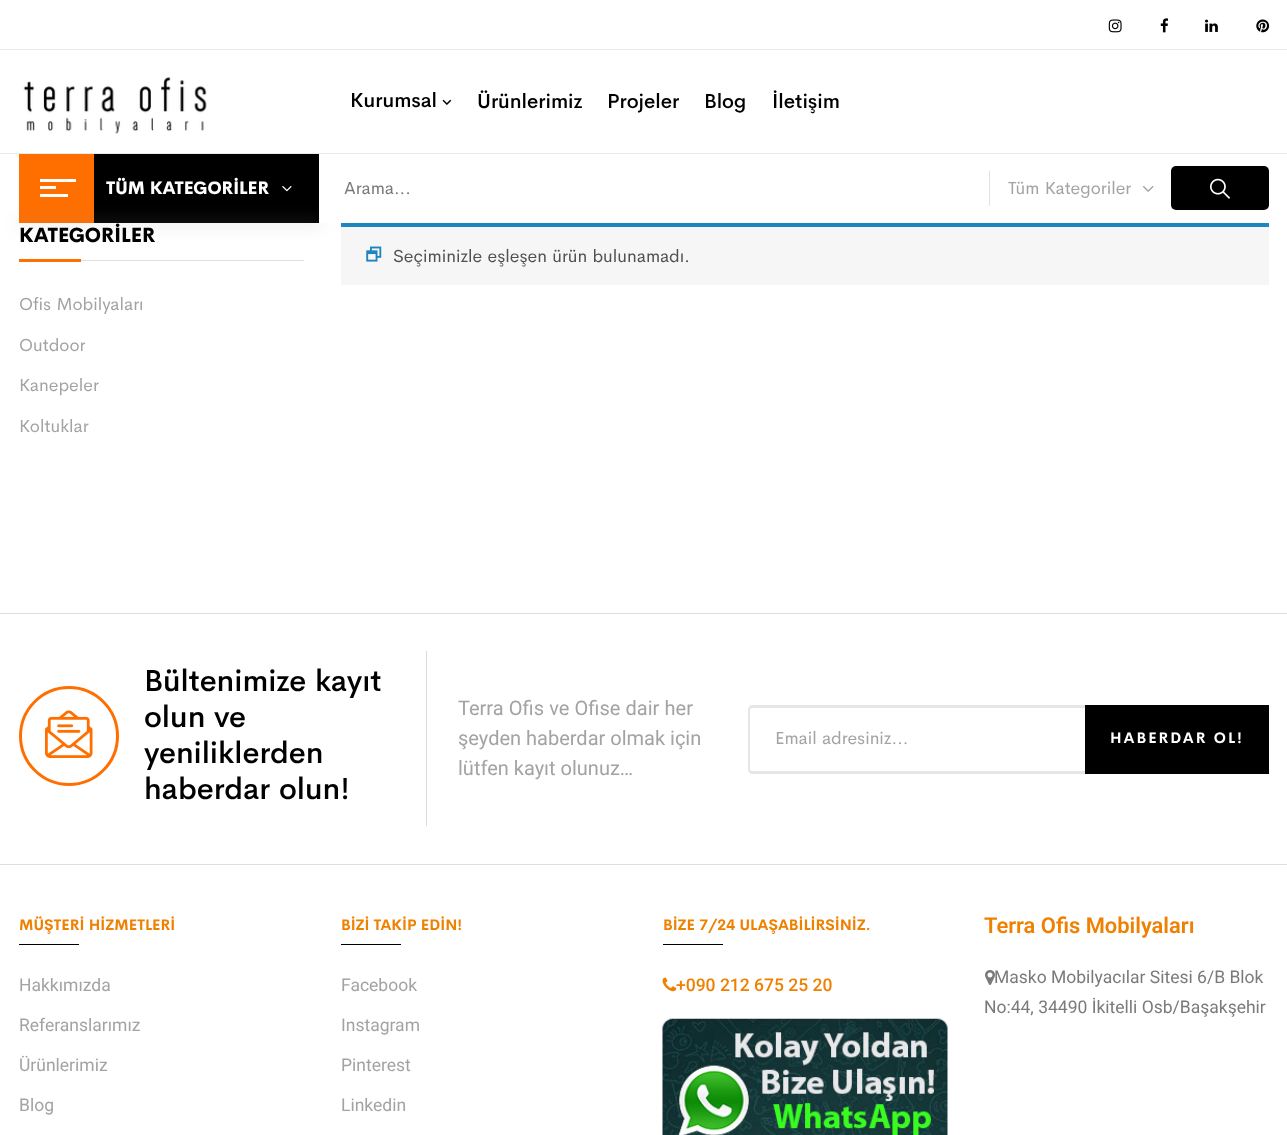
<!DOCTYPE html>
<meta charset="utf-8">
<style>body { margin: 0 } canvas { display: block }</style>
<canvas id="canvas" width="1287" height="1135"></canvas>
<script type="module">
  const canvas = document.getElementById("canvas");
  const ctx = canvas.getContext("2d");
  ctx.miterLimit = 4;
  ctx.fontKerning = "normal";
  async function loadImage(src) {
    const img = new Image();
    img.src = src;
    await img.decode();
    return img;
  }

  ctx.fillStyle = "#ffffff";
  ctx.fillRect(0, 0, 1287, 1135);
  ctx.fillStyle = "#e8e8e8";
  ctx.fillRect(0, 49, 1287, 1);
  ctx.drawImage(await loadImage("img1.png"), 1108, 19, 14, 14);
  ctx.drawImage(await loadImage("img2.png"), 1160, 18, 9, 15);
  ctx.drawImage(await loadImage("img3.png"), 1205, 19, 13, 13);
  ctx.drawImage(await loadImage("img4.png"), 1256, 19, 14, 14);
  ctx.drawImage(await loadImage("img5.png"), 23, 77, 184, 57);
  ctx.font = "500 20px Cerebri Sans";
  ctx.fillStyle = "#000000";
  ctx.fillText("Kurumsal", 350, 107);
  ctx.drawImage(await loadImage("img6.png"), 442, 99, 10, 6);
  ctx.fillText("Ürünlerimiz", 477, 108);
  ctx.fillText("Projeler", 607, 108);
  ctx.fillText("Blog", 704, 108);
  ctx.fillText("İletişim", 772, 108);
  ctx.fillStyle = "#eaeaea";
  ctx.fillRect(0, 153, 1287, 1);
  ctx.fillStyle = "#000000";
  ctx.fillRect(94, 154, 225, 69);
  ctx.fillStyle = "#ff6f00";
  ctx.fillRect(19, 154, 75, 69);
  ctx.font = "800 17.5px Cerebri Sans";
  ctx.fillStyle = "#ffffff";
  ctx.fillText("TÜM KATEGORİLER", 106, 194);
  ctx.fillRect(40, 186, 16, 3);
  ctx.fillRect(40, 179, 36, 3);
  ctx.fillRect(40, 194, 28, 3);
  ctx.drawImage(await loadImage("img7.png"), 282, 186, 10, 6);
  ctx.fillStyle = "#f7f6f7";
  ctx.fillRect(341, 227, 928, 58);
  ctx.fillStyle = "#1e85be";
  ctx.fillRect(341, 223, 928, 4);
  ctx.fillStyle = "rgba(143, 143, 143, 0.3)";
  ctx.filter = "blur(7.5px)";
  ctx.beginPath();
  ctx.rect(16, 221, 305, 5);
  ctx.fill();
  ctx.filter = "none";
  ctx.fillStyle = "#ffffff";
  ctx.beginPath();
  ctx.roundRect(319, 154, 950, 69, 4);
  ctx.fill();
  ctx.font = "17.5px Cerebri Sans";
  ctx.fillStyle = "#7a7a7a";
  ctx.fillText("Arama...", 344, 194);
  ctx.fillStyle = "#e1e1e1";
  ctx.fillRect(989, 171, 1, 35);
  ctx.fillStyle = "#a3a3a3";
  ctx.fillText("Tüm Kategoriler", 1008, 194);
  ctx.drawImage(await loadImage("img8.png"), 1143, 186, 11, 6);
  ctx.fillStyle = "#000000";
  ctx.beginPath();
  ctx.roundRect(1171, 166, 98, 44, 5);
  ctx.fill();
  ctx.drawImage(await loadImage("img9.png"), 1210, 178, 20, 21);
  ctx.fillStyle = "#e1e1e1";
  ctx.fillRect(81, 260, 223, 1);
  ctx.font = "800 20px Cerebri Sans";
  ctx.fillStyle = "#000000";
  ctx.fillText("KATEGORİLER", 19, 242);
  ctx.fillStyle = "#ff6f00";
  ctx.fillRect(19, 259, 62, 3);
  ctx.font = "17.5px Cerebri Sans";
  ctx.fillStyle = "#a3a3a3";
  ctx.fillText("Ofis Mobilyaları", 19, 310);
  ctx.fillText("Outdoor", 19, 351);
  ctx.fillText("Kanepeler", 19, 391);
  ctx.fillText("Koltuklar", 19, 432);
  ctx.drawImage(await loadImage("img10.png"), 366, 246, 16, 16);
  ctx.fillStyle = "#515151";
  ctx.fillText("Seçiminizle eşleşen ürün bulunamadı.", 393, 262);
  ctx.fillStyle = "#dedede";
  ctx.fillRect(0, 613, 1287, 1);
  ctx.fillRect(0, 864, 1287, 1);
  ctx.fillStyle = "#dbdada";
  ctx.fillRect(426, 651, 1, 175);
  ctx.font = "500 30px Cerebri Sans";
  ctx.fillStyle = "#000000";
  ctx.fillText("Bültenimize kayıt", 144, 691);
  ctx.beginPath();
  ctx.arc(69, 736, 48.5, 0, Math.PI * 2);
  ctx.strokeStyle = "#ff6f00";
  ctx.lineWidth = 3;
  ctx.stroke();
  ctx.drawImage(await loadImage("img11.png"), 45, 710, 48, 48);
  ctx.fillText("olun ve", 144, 727);
  ctx.fillText("yeniliklerden", 144, 763);
  ctx.fillText("haberdar olun!", 144, 799);
  ctx.wordSpacing = "0.25px";
  ctx.font = "20px Roboto";
  ctx.fillStyle = "#a3a3a3";
  ctx.fillText("Terra Ofis ve Ofise dair her", 458, 715);
  ctx.wordSpacing = "0px";
  ctx.fillText("şeyden haberdar olmak için", 458, 745);
  ctx.fillText("lütfen kayıt olunuz…", 458, 775);
  ctx.fillStyle = "#e6e6e6";
  ctx.beginPath();
  ctx.moveTo(752, 705);
  ctx.lineTo(1085, 705);
  ctx.lineTo(1085, 774);
  ctx.lineTo(752, 774);
  ctx.bezierCurveTo(750, 774, 748, 772, 748, 769);
  ctx.lineTo(748, 710);
  ctx.bezierCurveTo(748, 707, 750, 705, 752, 705);
  ctx.closePath();
  ctx.moveTo(752, 708);
  ctx.lineTo(1085, 708);
  ctx.lineTo(1085, 771);
  ctx.lineTo(752, 771);
  ctx.bezierCurveTo(751, 771, 750, 770, 750, 769);
  ctx.lineTo(750, 710);
  ctx.bezierCurveTo(750, 709, 751, 708, 752, 708);
  ctx.closePath();
  ctx.fill("evenodd");
  ctx.font = "17.5px Cerebri Sans";
  ctx.fillStyle = "#a3a3a3";
  ctx.fillText("Email adresiniz...", 775, 744);
  ctx.fillStyle = "#000000";
  ctx.fillRect(1085, 705, 184, 69);
  ctx.letterSpacing = "2px";
  ctx.font = "bold 15px Cerebri Sans";
  ctx.fillStyle = "#ffffff";
  ctx.fillText("HABERDAR OL!", 1110, 743);
  ctx.letterSpacing = "0px";
  ctx.fillStyle = "#ef8000";
  ctx.fillText("MÜŞTERİ HİZMETLERİ", 19, 930);
  ctx.fillStyle = "#000000";
  ctx.fillRect(19, 944, 60, 1);
  ctx.font = "17.5px Roboto";
  ctx.fillStyle = "#a3a3a3";
  ctx.fillText("Hakkımızda", 19, 991);
  ctx.fillText("Referanslarımız", 19, 1031);
  ctx.fillText("Ürünlerimiz", 19, 1071);
  ctx.fillText("Blog", 19, 1111);
  ctx.font = "bold 15px Cerebri Sans";
  ctx.fillStyle = "#ef8000";
  ctx.fillText("BİZİ TAKİP EDİN!", 341, 930);
  ctx.fillStyle = "#000000";
  ctx.fillRect(341, 944, 60, 1);
  ctx.font = "17.5px Roboto";
  ctx.fillStyle = "#a3a3a3";
  ctx.fillText("Facebook", 341, 991);
  ctx.fillText("Instagram", 341, 1031);
  ctx.fillText("Pinterest", 341, 1071);
  ctx.fillText("Linkedin", 341, 1111);
  ctx.font = "bold 15px Cerebri Sans";
  ctx.fillStyle = "#ef8000";
  ctx.fillText("BİZE 7/24 ULAŞABİLİRSİNİZ.", 663, 930);
  ctx.fillStyle = "#000000";
  ctx.fillRect(663, 944, 60, 1);
  ctx.drawImage(await loadImage("img12.png"), 662, 977, 15, 15);
  ctx.font = "500 17.5px Roboto";
  ctx.fillStyle = "#ef8000";
  ctx.fillText("+090 212 675 25 20", 676, 991);
  ctx.drawImage(await loadImage("img13.png"), 662, 1018, 286, 117);
  ctx.font = "600 21.9px Roboto";
  ctx.fillText("Terra Ofis Mobilyaları", 984, 933);
  ctx.drawImage(await loadImage("img14.png"), 985, 970, 10, 15);
  ctx.font = "17.5px Roboto";
  ctx.fillStyle = "#7a7a7a";
  ctx.fillText("Masko Mobilyacılar Sitesi 6/B Blok", 994, 983);
  ctx.fillText("No:44, 34490 İkitelli Osb/Başakşehir", 984, 1013);
</script>
